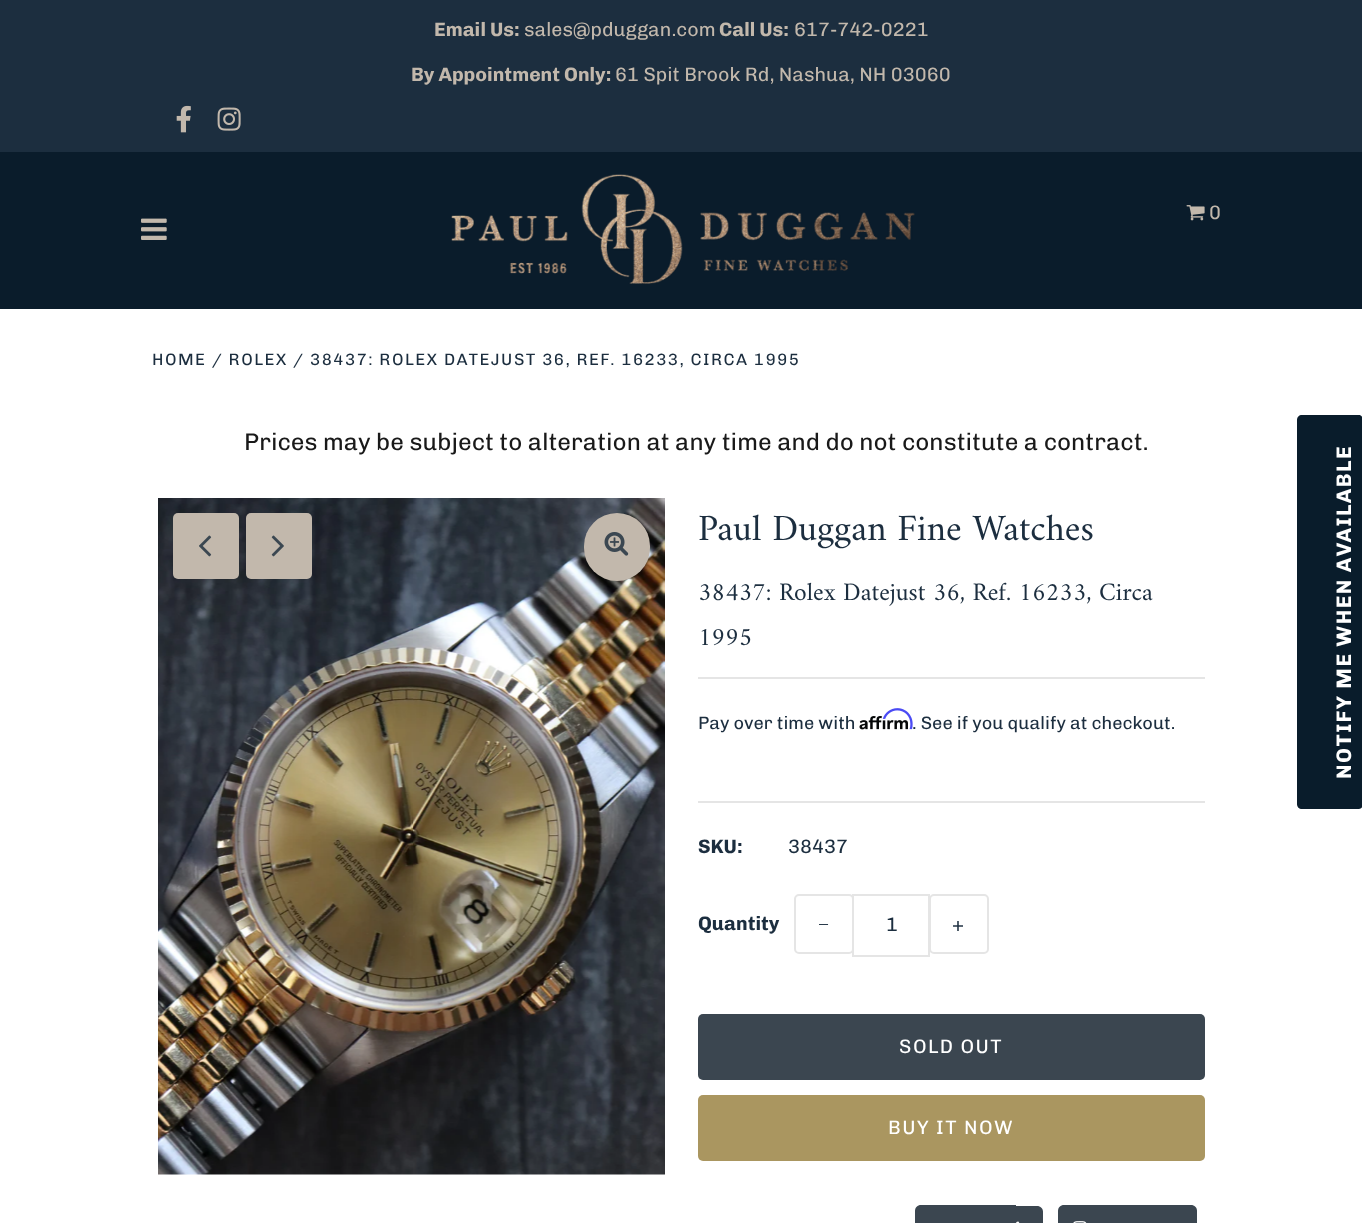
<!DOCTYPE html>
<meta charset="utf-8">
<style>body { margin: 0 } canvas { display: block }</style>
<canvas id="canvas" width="1362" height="1223"></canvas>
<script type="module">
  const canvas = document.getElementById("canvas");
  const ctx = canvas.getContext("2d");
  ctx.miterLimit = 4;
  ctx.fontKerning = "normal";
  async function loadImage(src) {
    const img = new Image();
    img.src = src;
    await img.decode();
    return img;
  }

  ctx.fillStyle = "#ffffff";
  ctx.fillRect(0, 0, 1362, 1223);
  ctx.fillStyle = "#0a1c2b";
  ctx.fillRect(0, 152, 1362, 157);
  ctx.fillStyle = "#1c2e3f";
  ctx.fillRect(0, 0, 1362, 152);
  ctx.font = "bold 19.5px Chivo";
  ctx.fillStyle = "#c2b8ac";
  ctx.fillText("Email Us:", 434, 36);
  ctx.font = "19.5px Chivo";
  ctx.fillText("sales@pduggan.com", 524, 36);
  ctx.font = "bold 19.5px Chivo";
  ctx.fillText("Call Us:", 719, 36);
  ctx.font = "19.5px Chivo";
  ctx.fillText("617-742-0221", 794, 36);
  ctx.font = "bold 19.5px Chivo";
  ctx.fillText("By Appointment Only:", 411, 81);
  ctx.font = "19.5px Chivo";
  ctx.fillText("61 Spit Brook Rd, Nashua, NH 03060", 615, 81);
  ctx.drawImage(await loadImage("img1.png"), 176, 105, 15, 28);
  ctx.drawImage(await loadImage("img2.png"), 217, 107, 24, 24);
  ctx.drawImage(await loadImage("img3.png"), 451, 174, 464, 110);
  ctx.drawImage(await loadImage("img4.png"), 1186, 205, 19, 16);
  ctx.fillText("0", 1209, 219);
  ctx.drawImage(await loadImage("img5.png"), 141, 218, 26, 22);
  ctx.letterSpacing = "1.5px";
  ctx.font = "16.5px Chivo";
  ctx.fillStyle = "#1c2e3f";
  ctx.fillText("HOME / ROLEX / 38437: ROLEX DATEJUST 36, REF. 16233, CIRCA 1995", 152, 365);
  ctx.letterSpacing = "0px";
  ctx.font = "24px Chivo";
  ctx.fillStyle = "#191919";
  ctx.fillText("Prices may be subject to alteration at any time and do not constitute a contract.", 244, 450);
  ctx.drawImage(await loadImage("img6.png"), 158, 498, 507, 677);
  ctx.fillStyle = "#c2b8ac";
  ctx.beginPath();
  ctx.roundRect(584, 513, 66, 68, 33);
  ctx.fill();
  ctx.drawImage(await loadImage("img7.png"), 604, 532, 25, 24);
  ctx.beginPath();
  ctx.roundRect(173, 513, 66, 66, 5);
  ctx.fill();
  ctx.drawImage(await loadImage("img8.png"), 199, 535, 13, 22);
  ctx.beginPath();
  ctx.roundRect(246, 513, 66, 66, 5);
  ctx.fill();
  ctx.drawImage(await loadImage("img9.png"), 271, 535, 13, 22);
  ctx.font = "37.5px Amiri";
  ctx.fillStyle = "#1c2e3f";
  ctx.fillText("Paul Duggan Fine Watches", 698, 540);
  ctx.font = "25.5px Amiri";
  ctx.fillText("38437: Rolex Datejust 36, Ref. 16233, Circa", 698, 600);
  ctx.fillText("1995", 698, 645);
  ctx.fillStyle = "#e5e5e5";
  ctx.fillRect(698, 677, 507, 2);
  ctx.fillRect(698, 801, 507, 2);
  ctx.font = "18px Chivo";
  ctx.fillStyle = "#1c2e3f";
  ctx.fillText("Pay over time with", 698, 729);
  ctx.drawImage(await loadImage("img11.png"), 859, 716, 49, 14);
  ctx.drawImage(await loadImage("img10.png"), 882, 708, 31, 22);
  ctx.fillText(". See if you qualify at checkout.", 912, 729);
  ctx.font = "bold 19.5px Chivo";
  ctx.fillText("SKU:", 698, 853);
  ctx.font = "19.5px Chivo";
  ctx.fillText("38437", 788, 853);
  ctx.font = "bold 19.5px Chivo";
  ctx.fillText("Quantity", 698, 930);
  ctx.beginPath();
  ctx.roundRect(795, 895, 58, 58, 4);
  ctx.strokeStyle = "#e5e5e5";
  ctx.lineWidth = 2;
  ctx.stroke();
  ctx.letterSpacing = "1.5px";
  ctx.font = "19.5px Liberation Serif";
  ctx.fillText("−", 818, 931);
  ctx.strokeRect(853, 895, 76, 61);
  ctx.letterSpacing = "0px";
  ctx.font = "19.5px Chivo";
  ctx.fillText("1", 886, 931);
  ctx.beginPath();
  ctx.roundRect(930, 895, 58, 58, 4);
  ctx.stroke();
  ctx.letterSpacing = "1.5px";
  ctx.fillText("+", 952, 931);
  ctx.fillStyle = "#3b4650";
  ctx.beginPath();
  ctx.roundRect(698, 1014, 507, 66, 5);
  ctx.fill();
  ctx.fillStyle = "#ffffff";
  ctx.fillText("SOLD OUT", 899, 1053);
  ctx.fillStyle = "#aa9660";
  ctx.beginPath();
  ctx.roundRect(698, 1095, 507, 66, 5);
  ctx.fill();
  ctx.fillStyle = "#ffffff";
  ctx.fillText("BUY IT NOW", 888, 1134);
  ctx.fillStyle = "#3b4650";
  ctx.beginPath();
  ctx.moveTo(921, 1205);
  ctx.lineTo(1016, 1205);
  ctx.lineTo(1016, 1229);
  ctx.lineTo(921, 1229);
  ctx.bezierCurveTo(917.5, 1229, 915, 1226.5, 915, 1223);
  ctx.lineTo(915, 1211);
  ctx.bezierCurveTo(915, 1207.5, 917.5, 1205, 921, 1205);
  ctx.closePath();
  ctx.fill();
  ctx.beginPath();
  ctx.moveTo(1016, 1206);
  ctx.lineTo(1037, 1206);
  ctx.bezierCurveTo(1040.5, 1206, 1043, 1208.5, 1043, 1212);
  ctx.lineTo(1043, 1223);
  ctx.bezierCurveTo(1043, 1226.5, 1040.5, 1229, 1037, 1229);
  ctx.lineTo(1016, 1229);
  ctx.closePath();
  ctx.fill();
  ctx.drawImage(await loadImage("img12.png"), 1016, 1221, 4, 2);
  ctx.beginPath();
  ctx.moveTo(1064, 1205);
  ctx.lineTo(1088, 1205);
  ctx.lineTo(1088, 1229);
  ctx.lineTo(1064, 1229);
  ctx.bezierCurveTo(1060.5, 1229, 1058, 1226.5, 1058, 1223);
  ctx.lineTo(1058, 1211);
  ctx.bezierCurveTo(1058, 1207.5, 1060.5, 1205, 1064, 1205);
  ctx.closePath();
  ctx.fill();
  ctx.beginPath();
  ctx.moveTo(1088, 1205);
  ctx.lineTo(1191, 1205);
  ctx.bezierCurveTo(1194.5, 1205, 1197, 1207.5, 1197, 1211);
  ctx.lineTo(1197, 1223);
  ctx.bezierCurveTo(1197, 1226.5, 1194.5, 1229, 1191, 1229);
  ctx.lineTo(1088, 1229);
  ctx.closePath();
  ctx.fill();
  ctx.drawImage(await loadImage("img13.png"), 1073, 1221, 14, 2);
  ctx.fillStyle = "#091c2b";
  ctx.beginPath();
  ctx.moveTo(1297, 804);
  ctx.lineTo(1297, 420);
  ctx.bezierCurveTo(1297, 417, 1299, 415, 1302, 415);
  ctx.lineTo(1359, 415);
  ctx.bezierCurveTo(1361, 415, 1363, 417, 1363, 420);
  ctx.lineTo(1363, 804);
  ctx.bezierCurveTo(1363, 807, 1361, 809, 1359, 809);
  ctx.lineTo(1302, 809);
  ctx.bezierCurveTo(1299, 809, 1297, 807, 1297, 804);
  ctx.closePath();
  ctx.fill();
  ctx.font = "bold 21px Chivo";
  ctx.fillStyle = "#ffffff";
  ctx.save();
  ctx.translate(1351, 779);
  ctx.rotate(-90 * Math.PI / 180);
  ctx.fillText("NOTIFY ME WHEN AVAILABLE", 0, 0);
  ctx.restore();
</script>
